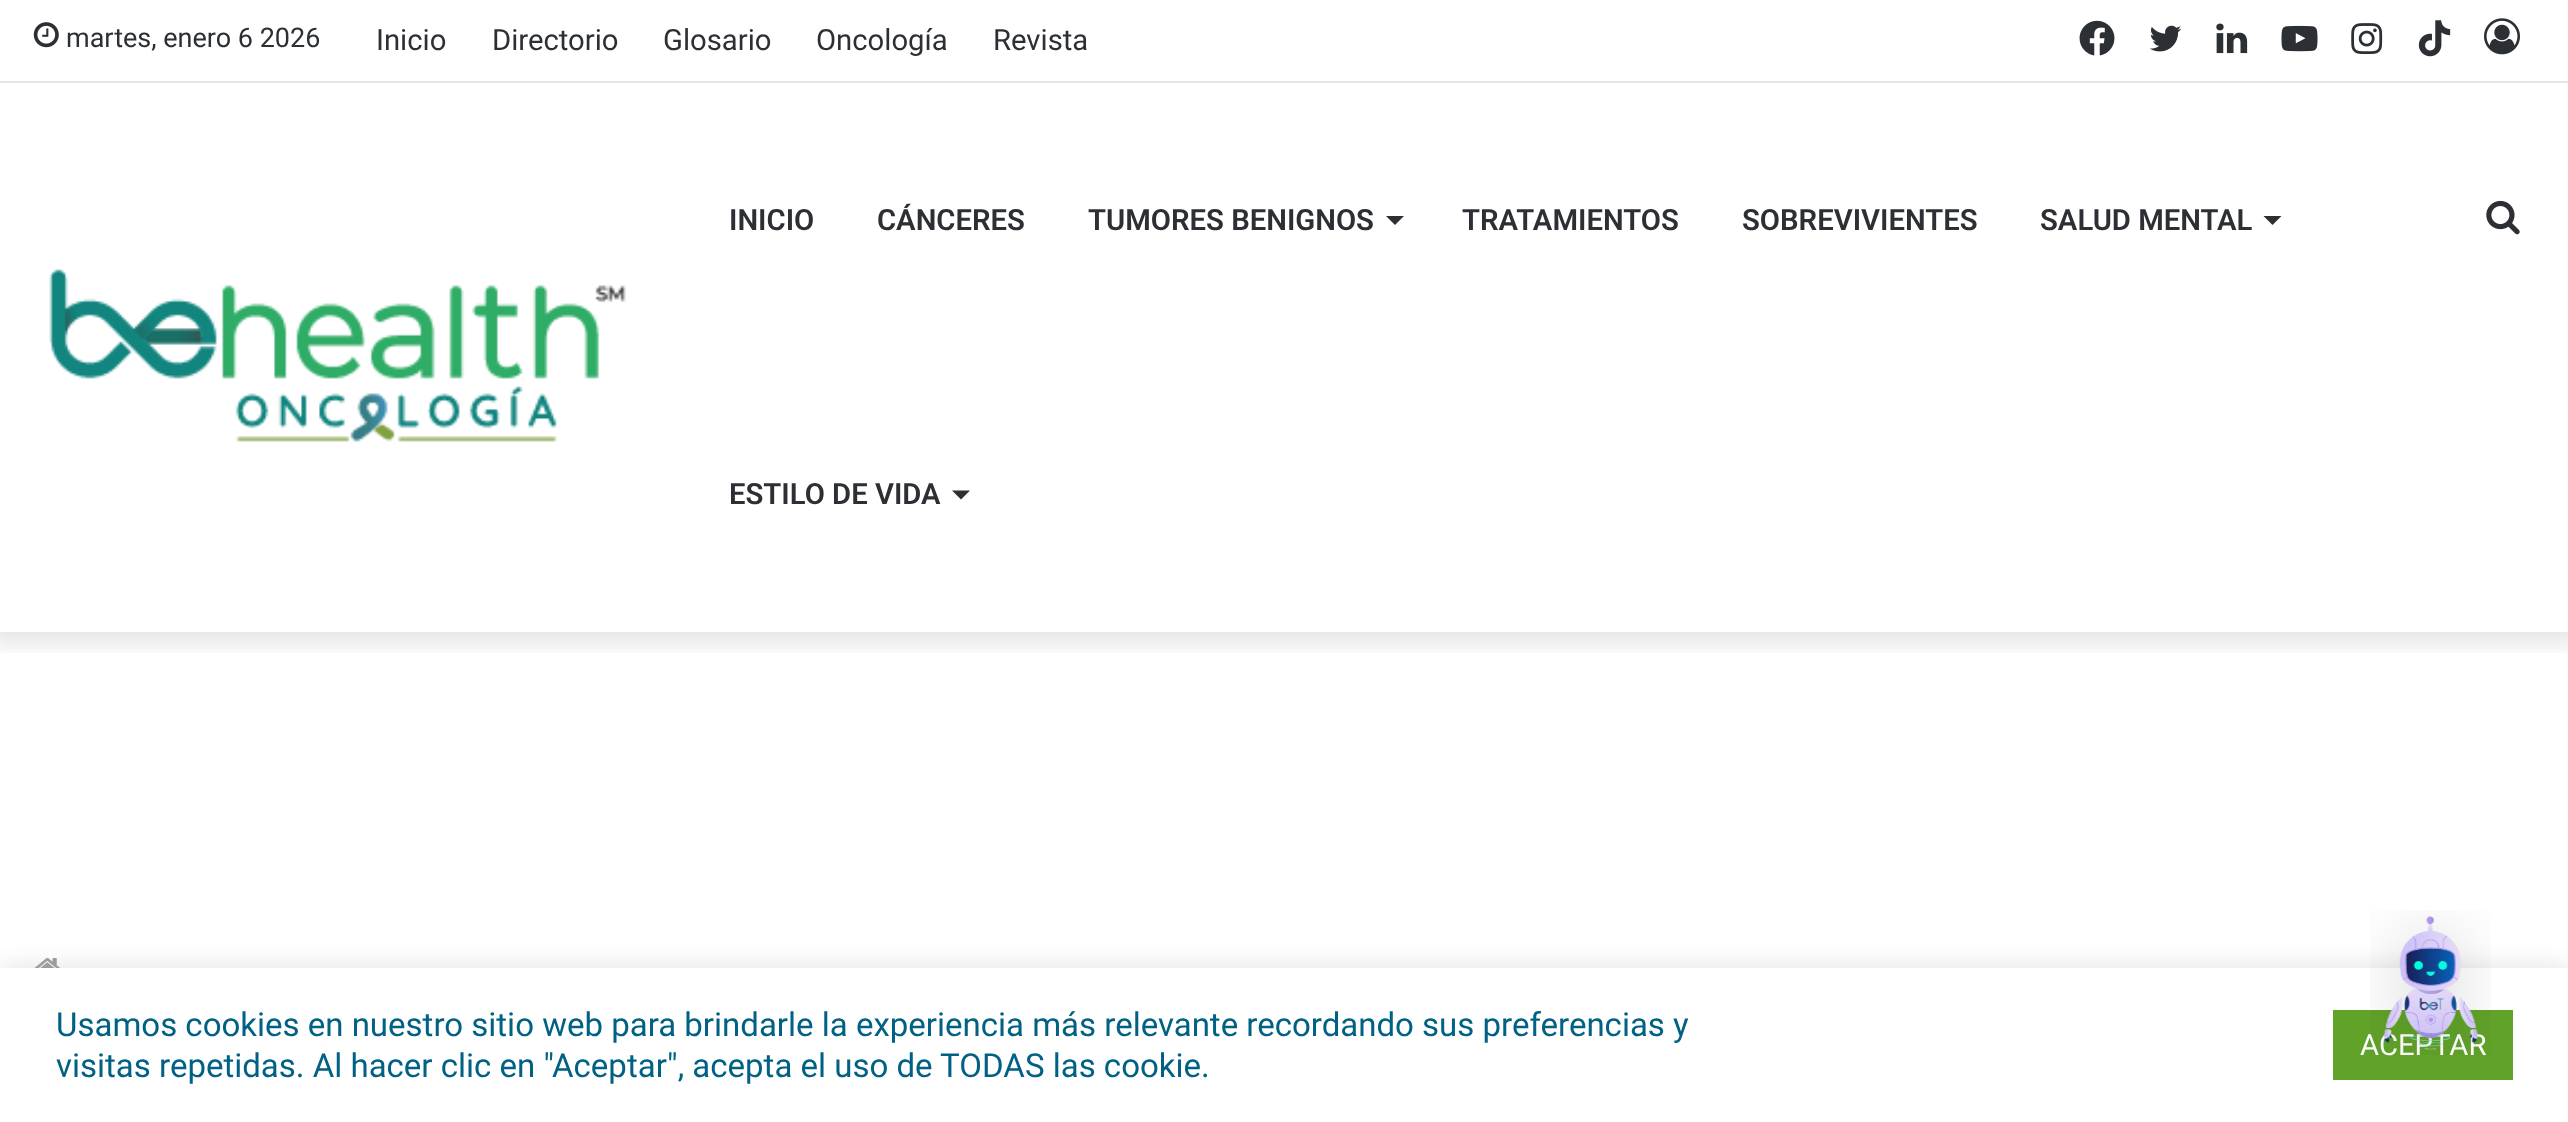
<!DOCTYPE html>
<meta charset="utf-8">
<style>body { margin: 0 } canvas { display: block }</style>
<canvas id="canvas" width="2568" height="1122"></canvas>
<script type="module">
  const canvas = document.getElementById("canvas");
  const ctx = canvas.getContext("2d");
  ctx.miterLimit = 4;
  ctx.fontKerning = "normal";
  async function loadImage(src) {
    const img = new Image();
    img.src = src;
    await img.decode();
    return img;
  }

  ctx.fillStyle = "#ffffff";
  ctx.fillRect(0, 0, 2568, 1122);
  ctx.save();
  ctx.beginPath();
  ctx.rect(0, 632, 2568, 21);
  ctx.clip();
  ctx.fillStyle = "rgba(0, 0, 0, 0.1)";
  ctx.filter = "blur(11px)";
  ctx.beginPath();
  ctx.rect(-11, -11, 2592, 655);
  ctx.fill();
  ctx.filter = "none";
  ctx.restore();
  ctx.fillStyle = "#e6e6e6";
  ctx.fillRect(0, 81, 2568, 2);
  ctx.drawImage(await loadImage("img1.png"), 33, 22, 26, 26);
  ctx.font = "27px Roboto";
  ctx.fillStyle = "#2c2f34";
  ctx.fillText("martes, enero 6 2026", 66, 47);
  ctx.font = "29.25px Roboto";
  ctx.fillText("Inicio", 376, 50);
  ctx.fillText("Directorio", 492, 50);
  ctx.fillText("Glosario", 663, 50);
  ctx.fillText("Oncología", 816, 50);
  ctx.fillText("Revista", 993, 50);
  ctx.drawImage(await loadImage("img2.png"), 2079, 20, 36, 36);
  ctx.drawImage(await loadImage("img3.png"), 2149, 25, 33, 27);
  ctx.drawImage(await loadImage("img4.png"), 2216, 23, 32, 31);
  ctx.drawImage(await loadImage("img5.png"), 2281, 25, 37, 27);
  ctx.drawImage(await loadImage("img6.png"), 2351, 23, 32, 31);
  ctx.drawImage(await loadImage("img7.png"), 2418, 20, 33, 37);
  ctx.drawImage(await loadImage("img8.png"), 2484, 18, 36, 37);
  ctx.drawImage(await loadImage("img9.png"), 49, 269, 577, 173);
  ctx.font = "600 29.25px Roboto";
  ctx.fillText("INICIO", 729, 230);
  ctx.fillText("CÁNCERES", 877, 230);
  ctx.fillText("TUMORES BENIGNOS", 1088, 230);
  ctx.beginPath();
  ctx.moveTo(1386, 216);
  ctx.lineTo(1404, 216);
  ctx.lineTo(1395, 225);
  ctx.closePath();
  ctx.fill();
  ctx.fillText("TRATAMIENTOS", 1462, 230);
  ctx.fillText("SOBREVIVIENTES", 1742, 230);
  ctx.fillText("SALUD MENTAL", 2040, 230);
  ctx.beginPath();
  ctx.moveTo(2263.5, 216);
  ctx.lineTo(2281.5, 216);
  ctx.lineTo(2272.5, 225);
  ctx.closePath();
  ctx.fill();
  ctx.fillText("ESTILO DE VIDA", 729, 504);
  ctx.beginPath();
  ctx.moveTo(952, 490.5);
  ctx.lineTo(970, 490.5);
  ctx.lineTo(961, 499.5);
  ctx.closePath();
  ctx.fill();
  ctx.drawImage(await loadImage("img10.png"), 2486, 200, 34, 35);
  ctx.drawImage(await loadImage("img11.png"), 34, 958, 26, 10);
  ctx.fillStyle = "rgba(172, 171, 171, 0.3)";
  ctx.filter = "blur(11px)";
  ctx.beginPath();
  ctx.rect(0, 965, 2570, 156);
  ctx.fill();
  ctx.filter = "none";
  ctx.fillStyle = "#ffffff";
  ctx.fillRect(0, 968, 2568, 154);
  ctx.fillStyle = "#61a229";
  ctx.fillRect(2333, 1010, 180, 70);
  ctx.font = "29.25px Roboto";
  ctx.fillStyle = "#ffffff";
  ctx.fillText("ACEPTAR", 2360, 1055);
  ctx.drawImage(await loadImage("img12.png"), 2370, 910, 121, 145);
  ctx.font = "33px Roboto";
  ctx.fillStyle = "#006184";
  ctx.fillText("Usamos cookies en nuestro sitio web para brindarle la experiencia más relevante recordando sus preferencias y", 56, 1036);
  ctx.fillText("visitas repetidas. Al hacer clic en \"Aceptar\", acepta el uso de TODAS las cookie.", 56, 1077);
</script>
